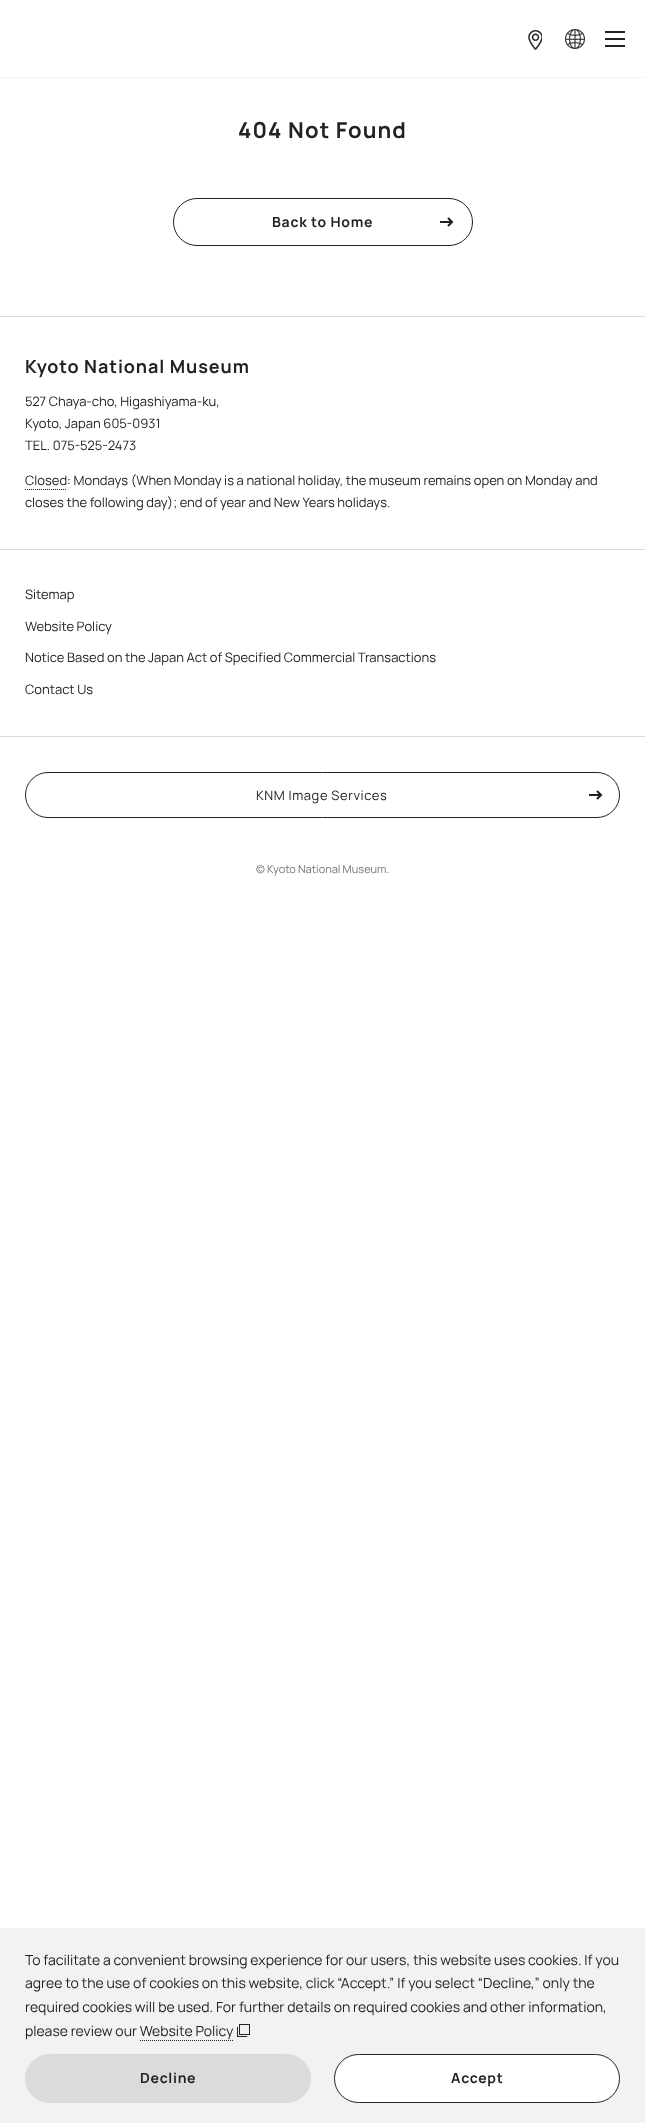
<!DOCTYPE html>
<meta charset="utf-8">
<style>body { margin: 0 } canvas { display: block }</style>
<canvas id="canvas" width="645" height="2123"></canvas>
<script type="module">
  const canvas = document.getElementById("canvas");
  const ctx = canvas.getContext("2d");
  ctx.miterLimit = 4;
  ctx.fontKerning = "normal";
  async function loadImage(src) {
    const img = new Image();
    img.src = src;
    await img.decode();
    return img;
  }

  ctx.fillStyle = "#ffffff";
  ctx.fillRect(0, 0, 645, 2123);
  ctx.fillStyle = "#f2f2f2";
  ctx.fillRect(0, 77, 645, 1);
  ctx.drawImage(await loadImage("img1.png"), 528, 30, 14, 20);
  ctx.drawImage(await loadImage("img2.png"), 565, 29, 20, 20);
  ctx.fillStyle = "#222222";
  ctx.fillRect(605, 31, 20, 2);
  ctx.fillRect(605, 38, 20, 2);
  ctx.fillRect(605, 45, 20, 2);
  ctx.letterSpacing = "1.1px";
  ctx.font = "bold 22px Manrope";
  ctx.fillText("404 Not Found", 238, 138);
  ctx.beginPath();
  ctx.roundRect(173.5, 198.5, 299, 47, 23.5);
  ctx.strokeStyle = "#222222";
  ctx.stroke();
  ctx.letterSpacing = "0.75px";
  ctx.font = "bold 14px Manrope";
  ctx.fillText("Back to Home", 272, 227);
  ctx.beginPath();
  ctx.moveTo(448, 218);
  ctx.lineTo(452, 222);
  ctx.lineTo(448, 226);
  ctx.lineWidth = 2.1;
  ctx.stroke();
  ctx.fillRect(440, 221, 12, 2);
  ctx.fillStyle = "#dbdbdb";
  ctx.fillRect(0, 316, 645, 1);
  ctx.letterSpacing = "0.9px";
  ctx.font = "bold 18px Manrope";
  ctx.fillStyle = "#222222";
  ctx.fillText("Kyoto National Museum", 25, 373);
  ctx.fillStyle = "#dbdbdb";
  ctx.fillRect(0, 549, 645, 1);
  ctx.letterSpacing = "0px";
  ctx.font = "13px Manrope";
  ctx.fillStyle = "#222222";
  ctx.fillText("527 Chaya-cho, Higashiyama-ku,", 25, 406);
  ctx.fillText("Kyoto, Japan 605-0931", 25, 428);
  ctx.fillText("TEL. 075-525-2473", 25, 450);
  ctx.fillText("Closed: Mondays (When Monday is a national holiday, the museum remains open on Monday and", 25, 485);
  ctx.beginPath();
  ctx.moveTo(25, 489.5);
  ctx.lineTo(67, 489.5);
  ctx.lineWidth = 1;
  ctx.setLineDash([1, 1]);
  ctx.stroke();
  ctx.fillText("closes the following day); end of year and New Years holidays.", 25, 507);
  ctx.fillStyle = "#dbdbdb";
  ctx.fillRect(0, 736, 645, 1);
  ctx.fillStyle = "#222222";
  ctx.fillText("Sitemap", 25, 599);
  ctx.fillText("Website Policy", 25, 631);
  ctx.fillText("Notice Based on the Japan Act of Specified Commercial Transactions", 25, 662);
  ctx.fillText("Contact Us", 25, 694);
  ctx.beginPath();
  ctx.roundRect(25.5, 772.5, 594, 45, 22.5);
  ctx.setLineDash([]);
  ctx.stroke();
  ctx.letterSpacing = "0.6px";
  ctx.fillText("KNM Image Services", 256, 800);
  ctx.beginPath();
  ctx.moveTo(597, 791);
  ctx.lineTo(601, 795);
  ctx.lineTo(597, 799);
  ctx.lineWidth = 2.1;
  ctx.stroke();
  ctx.fillRect(589, 794, 12, 2);
  ctx.letterSpacing = "0px";
  ctx.font = "11px Manrope";
  ctx.fillStyle = "#757575";
  ctx.fillText("© Kyoto National Museum.", 256, 873);
  ctx.fillStyle = "#f2f2f2";
  ctx.fillRect(0, 1928, 645, 195);
  ctx.font = "14px Manrope";
  ctx.fillStyle = "#222222";
  ctx.fillText("To facilitate a convenient browsing experience for our users, this website uses cookies. If you", 25, 1965);
  ctx.fillText("agree to the use of cookies on this website, click “Accept.” If you select “Decline,” only the", 25, 1988);
  ctx.fillText("required cookies will be used. For further details on required cookies and other information,", 25, 2012);
  ctx.drawImage(await loadImage("img3.png"), 237, 2024, 13, 13);
  ctx.beginPath();
  ctx.moveTo(140, 2040.5);
  ctx.lineTo(233.5, 2040.5);
  ctx.lineWidth = 1;
  ctx.setLineDash([1, 1]);
  ctx.stroke();
  ctx.fillText("please review our Website Policy", 25, 2036);
  ctx.fillStyle = "#dbdbdb";
  ctx.beginPath();
  ctx.roundRect(25.5, 2054.5, 285, 48, 24);
  ctx.fill();
  ctx.strokeStyle = "#dbdbdb";
  ctx.setLineDash([]);
  ctx.stroke();
  ctx.letterSpacing = "0.75px";
  ctx.font = "bold 14px Manrope";
  ctx.fillStyle = "#222222";
  ctx.fillText("Decline", 140, 2083);
  ctx.fillStyle = "#ffffff";
  ctx.beginPath();
  ctx.roundRect(334.5, 2054.5, 285, 48, 24);
  ctx.fill();
  ctx.strokeStyle = "#222222";
  ctx.stroke();
  ctx.fillStyle = "#222222";
  ctx.fillText("Accept", 451, 2083);
</script>
